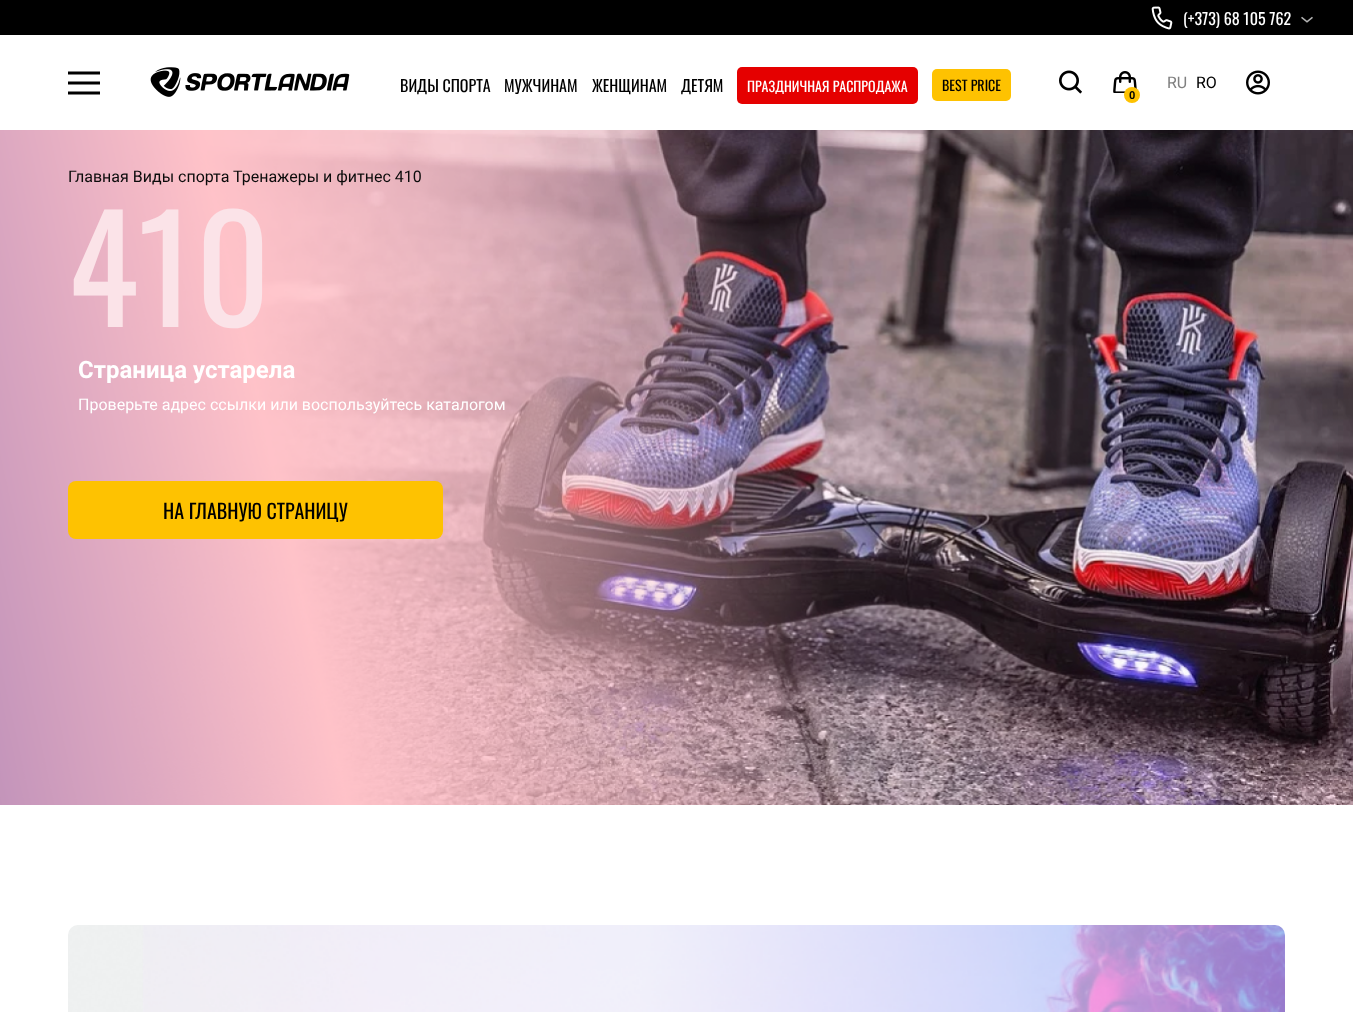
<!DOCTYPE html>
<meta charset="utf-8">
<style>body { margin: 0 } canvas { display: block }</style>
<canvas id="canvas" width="1353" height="1012"></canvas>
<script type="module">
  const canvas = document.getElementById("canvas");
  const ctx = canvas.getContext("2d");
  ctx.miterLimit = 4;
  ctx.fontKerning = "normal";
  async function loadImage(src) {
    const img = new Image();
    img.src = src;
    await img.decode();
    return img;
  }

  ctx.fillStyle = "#ffffff";
  ctx.fillRect(0, 0, 1353, 1012);
  ctx.fillStyle = "#000000";
  ctx.fillRect(0, 0, 1353, 35);
  ctx.drawImage(await loadImage("img1.png"), 1151, 6, 22, 24);
  ctx.font = "16px Oswald";
  ctx.fillStyle = "#ffffff";
  ctx.fillText("(+373) 68 105 762", 1183, 25);
  ctx.drawImage(await loadImage("img2.png"), 1301, 16, 12, 7);
  ctx.drawImage(await loadImage("img3.png"), 68, 71, 32, 24);
  ctx.drawImage(await loadImage("img4.png"), 150, 67, 200, 30);
  ctx.fillStyle = "#000000";
  ctx.fillText("ВИДЫ СПОРТА", 400, 92);
  ctx.fillText("МУЖЧИНАМ", 504, 92);
  ctx.fillText("ЖЕНЩИНАМ", 592, 92);
  ctx.fillText("ДЕТЯМ", 681, 92);
  ctx.fillStyle = "#e50000";
  ctx.beginPath();
  ctx.roundRect(737, 67, 181, 37, 5);
  ctx.fill();
  ctx.font = "14px Oswald";
  ctx.fillStyle = "#ffffff";
  ctx.fillText("ПРАЗДНИЧНАЯ РАСПРОДАЖА", 747, 92);
  ctx.fillStyle = "#fec201";
  ctx.beginPath();
  ctx.roundRect(932, 69, 79, 32, 5);
  ctx.fill();
  ctx.fillStyle = "#000000";
  ctx.fillText("BEST PRICE", 942, 91);
  ctx.drawImage(await loadImage("img5.png"), 1059, 70, 23, 24);
  ctx.font = "16px Roboto";
  ctx.fillStyle = "#808080";
  ctx.fillText("RU", 1167, 88);
  ctx.fillStyle = "#000000";
  ctx.fillText("RO", 1196, 88);
  ctx.drawImage(await loadImage("img6.png"), 1246, 70, 24, 25);
  ctx.drawImage(await loadImage("img7.png"), 1113, 71, 24, 22);
  ctx.fillStyle = "#fec201";
  ctx.beginPath();
  ctx.arc(1132, 95, 8, 0, Math.PI * 2);
  ctx.fill();
  ctx.font = "bold 11px Roboto";
  ctx.fillStyle = "#000000";
  ctx.fillText("0", 1129, 99);
  ctx.drawImage(await loadImage("img8.png"), 0, 130, 1353, 675);
  ctx.font = "16px Roboto";
  ctx.fillStyle = "#0b0b0b";
  ctx.fillText("Главная Виды спорта Тренажеры и фитнес 410", 68, 182);
  ctx.font = "145px Oswald";
  ctx.fillStyle = "#fbe3e8";
  ctx.fillText("410", 68, 327);
  ctx.font = "bold 24px Roboto";
  ctx.fillStyle = "#ffffff";
  ctx.fillText("Страница устарела", 78, 378);
  ctx.font = "16px Roboto";
  ctx.fillText("Проверьте адрес ссылки или воспользуйтесь каталогом", 78, 410);
  ctx.fillStyle = "#fec201";
  ctx.beginPath();
  ctx.roundRect(68, 481, 375, 58, 8);
  ctx.fill();
  ctx.font = "20px Oswald";
  ctx.fillStyle = "#000000";
  ctx.fillText("НА ГЛАВНУЮ СТРАНИЦУ", 163, 519);
  ctx.drawImage(await loadImage("img9.png"), 68, 925, 1217, 87);
</script>
